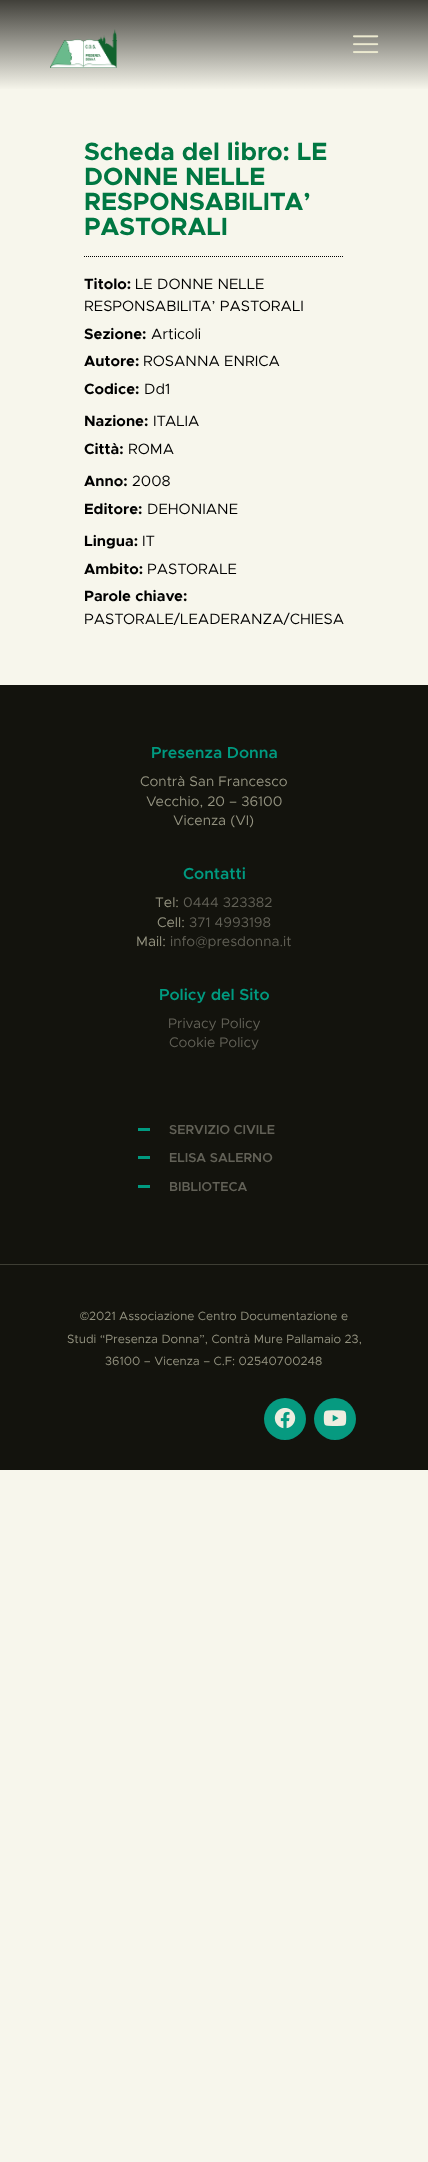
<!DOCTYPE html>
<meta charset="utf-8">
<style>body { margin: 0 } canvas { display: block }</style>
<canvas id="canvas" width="428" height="2162"></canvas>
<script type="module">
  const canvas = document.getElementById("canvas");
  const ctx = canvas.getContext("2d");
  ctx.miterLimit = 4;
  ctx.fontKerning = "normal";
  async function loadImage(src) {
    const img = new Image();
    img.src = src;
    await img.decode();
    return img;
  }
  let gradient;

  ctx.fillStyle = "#f7f6ec";
  ctx.fillRect(0, 0, 428, 2162);
  gradient = ctx.createLinearGradient(214, 90, 214, 0);
  gradient.addColorStop(0, "#f7f6ec");
  gradient.addColorStop(1, "#41403a");
  ctx.fillStyle = gradient;
  ctx.fillRect(0, 0, 428, 89);
  ctx.drawImage(await loadImage("img1.png"), 50, 29, 67, 39);
  ctx.drawImage(await loadImage("img2.png"), 353, 35, 26, 19);
  ctx.font = "bold 25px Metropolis";
  ctx.fillStyle = "#007742";
  ctx.fillText("Scheda del libro: LE", 84, 160);
  ctx.fillText("DONNE NELLE", 84, 185);
  ctx.fillText("RESPONSABILITA’", 84, 210);
  ctx.fillText("PASTORALI", 84, 235);
  ctx.beginPath();
  ctx.moveTo(84, 256.5);
  ctx.lineTo(344, 256.5);
  ctx.strokeStyle = "#000000";
  ctx.setLineDash([1, 1]);
  ctx.stroke();
  ctx.font = "bold 15px Metropolis";
  ctx.fillStyle = "#000000";
  ctx.fillText("Titolo:", 84, 289);
  ctx.font = "15px Metropolis";
  ctx.fillText("LE DONNE NELLE", 135, 289);
  ctx.fillText("RESPONSABILITA’ PASTORALI", 84, 311);
  ctx.font = "bold 15px Metropolis";
  ctx.fillText("Sezione:", 84, 339);
  ctx.font = "15px Metropolis";
  ctx.fillText("Articoli", 151, 339);
  ctx.font = "bold 15px Metropolis";
  ctx.fillText("Autore:", 84, 366);
  ctx.font = "15px Metropolis";
  ctx.fillText("ROSANNA ENRICA", 143, 366);
  ctx.font = "bold 15px Metropolis";
  ctx.fillText("Codice:", 84, 394);
  ctx.font = "15px Metropolis";
  ctx.fillText("Dd1", 144, 394);
  ctx.font = "bold 15px Metropolis";
  ctx.fillText("Nazione:", 84, 426);
  ctx.font = "15px Metropolis";
  ctx.fillText("ITALIA", 153, 426);
  ctx.font = "bold 15px Metropolis";
  ctx.fillText("Città:", 84, 454);
  ctx.font = "15px Metropolis";
  ctx.fillText("ROMA", 128, 454);
  ctx.font = "bold 15px Metropolis";
  ctx.fillText("Anno:", 84, 486);
  ctx.font = "15px Metropolis";
  ctx.fillText("2008", 132, 486);
  ctx.font = "bold 15px Metropolis";
  ctx.fillText("Editore:", 84, 514);
  ctx.font = "15px Metropolis";
  ctx.fillText("DEHONIANE", 147, 514);
  ctx.font = "bold 15px Metropolis";
  ctx.fillText("Lingua:", 84, 546);
  ctx.font = "15px Metropolis";
  ctx.fillText("IT", 142, 546);
  ctx.font = "bold 15px Metropolis";
  ctx.fillText("Ambito:", 84, 574);
  ctx.font = "15px Metropolis";
  ctx.fillText("PASTORALE", 147, 574);
  ctx.font = "bold 15px Metropolis";
  ctx.fillText("Parole chiave:", 84, 601);
  ctx.font = "15px Metropolis";
  ctx.fillText("PASTORALE/LEADERANZA/CHIESA", 84, 624);
  ctx.fillStyle = "#13130d";
  ctx.fillRect(0, 685, 428, 579);
  ctx.font = "600 16px Metropolis";
  ctx.fillStyle = "#009a80";
  ctx.fillText("Presenza Donna", 151, 758);
  ctx.font = "14px Metropolis";
  ctx.fillStyle = "#949380";
  ctx.fillText("Contrà San Francesco", 140, 786);
  ctx.fillText("Vecchio, 20 – 36100", 146, 806);
  ctx.fillText("Vicenza (VI)", 173, 825);
  ctx.font = "600 16px Metropolis";
  ctx.fillStyle = "#009a80";
  ctx.fillText("Contatti", 183, 879);
  ctx.font = "14px Metropolis";
  ctx.fillStyle = "#949380";
  ctx.fillText("Tel:", 155, 907);
  ctx.fillStyle = "#626157";
  ctx.fillText("0444 323382", 183, 907);
  ctx.fillStyle = "#949380";
  ctx.fillText("Cell:", 157, 927);
  ctx.fillStyle = "#626157";
  ctx.fillText("371 4993198", 189, 927);
  ctx.fillStyle = "#949380";
  ctx.fillText("Mail:", 136, 946);
  ctx.fillStyle = "#626157";
  ctx.fillText("info@presdonna.it", 170, 946);
  ctx.font = "600 16px Metropolis";
  ctx.fillStyle = "#009a80";
  ctx.fillText("Policy del Sito", 159, 1000);
  ctx.font = "14px Metropolis";
  ctx.fillStyle = "#626157";
  ctx.fillText("Privacy Policy", 168, 1028);
  ctx.fillText("Cookie Policy", 169, 1047);
  ctx.fillStyle = "#009a80";
  ctx.fillRect(138, 1128, 12, 3);
  ctx.font = "600 13px Metropolis";
  ctx.fillStyle = "#626157";
  ctx.fillText("SERVIZIO CIVILE", 169, 1134);
  ctx.fillStyle = "#009a80";
  ctx.fillRect(138, 1156, 12, 3);
  ctx.fillStyle = "#626157";
  ctx.fillText("ELISA SALERNO", 169, 1162);
  ctx.fillStyle = "#009a80";
  ctx.fillRect(138, 1185, 12, 3);
  ctx.fillStyle = "#626157";
  ctx.fillText("BIBLIOTECA", 169, 1191);
  ctx.fillStyle = "#13130d";
  ctx.fillRect(0, 1265, 428, 205);
  ctx.fillStyle = "#3e3e34";
  ctx.fillRect(0, 1264, 428, 1);
  ctx.font = "12px Liberation Sans";
  ctx.fillStyle = "#949380";
  ctx.fillText("©", 80, 1320);
  ctx.font = "12px Metropolis";
  ctx.fillText("2021 Associazione Centro Documentazione e", 89, 1320);
  ctx.fillText("Studi “Presenza Donna”, Contrà Mure Pallamaio 23,", 67, 1343);
  ctx.fillText("36100 – Vicenza – C.F: 02540700248", 105, 1365);
  ctx.fillStyle = "#069a80";
  ctx.beginPath();
  ctx.arc(285, 1419, 21, 0, Math.PI * 2);
  ctx.fill();
  ctx.drawImage(await loadImage("img3.png"), 274, 1408, 22, 21);
  ctx.beginPath();
  ctx.arc(335, 1419, 21, 0, Math.PI * 2);
  ctx.fill();
  ctx.drawImage(await loadImage("img4.png"), 323, 1410, 24, 16);
</script>
